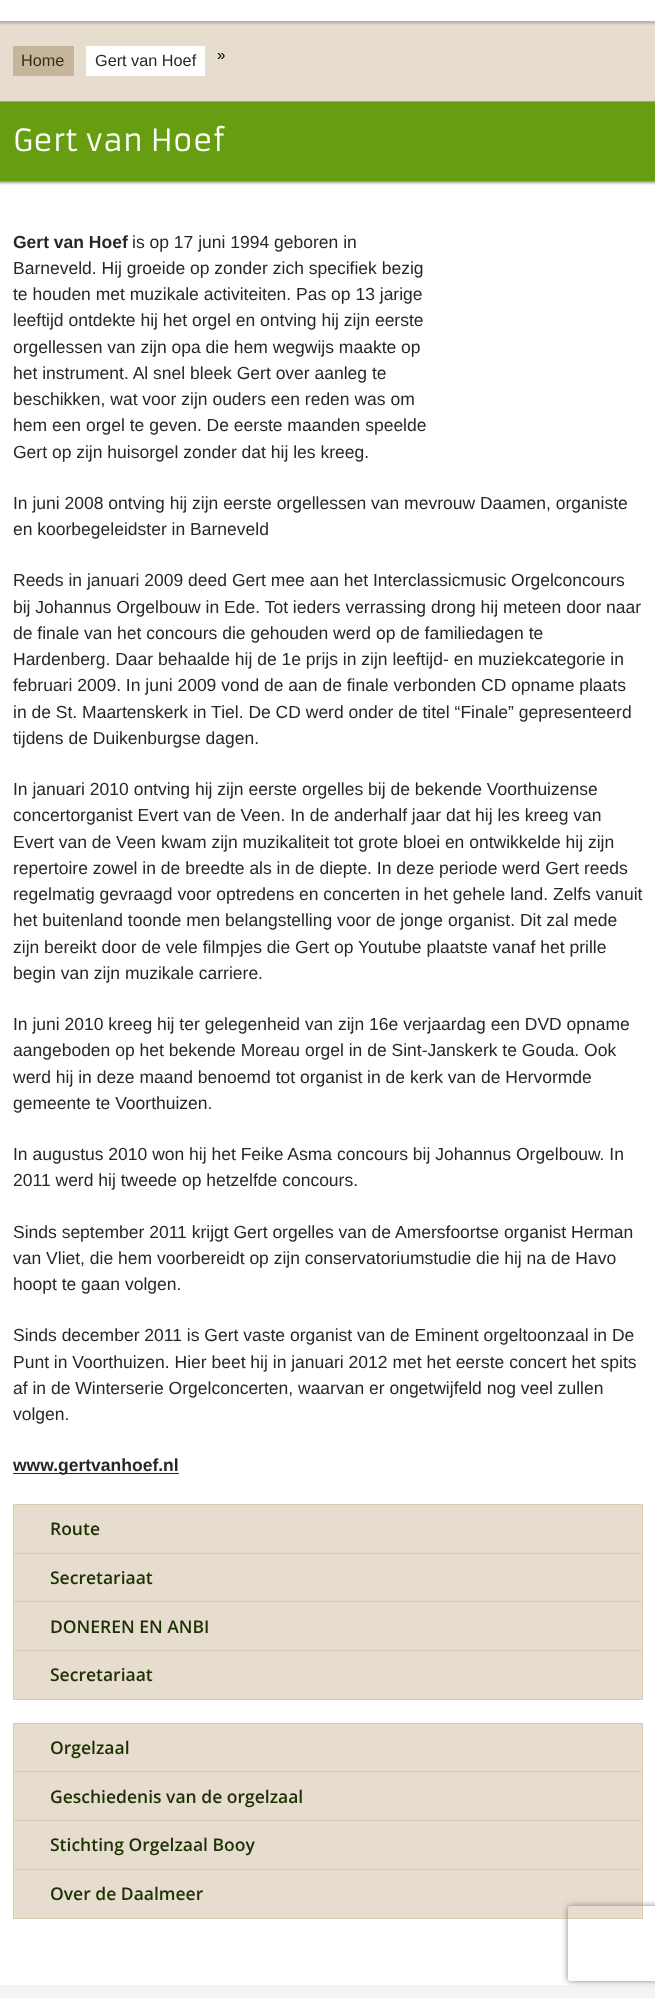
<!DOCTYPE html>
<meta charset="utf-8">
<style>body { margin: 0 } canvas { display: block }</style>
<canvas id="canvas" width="655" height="1998"></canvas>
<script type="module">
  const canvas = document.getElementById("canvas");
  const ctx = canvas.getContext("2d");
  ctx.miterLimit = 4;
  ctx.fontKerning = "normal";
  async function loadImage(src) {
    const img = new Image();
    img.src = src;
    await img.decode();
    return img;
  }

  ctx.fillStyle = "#ffffff";
  ctx.fillRect(0, 0, 655, 1998);
  ctx.fillStyle = "#e6ddce";
  ctx.fillRect(0, 21, 655, 80);
  ctx.drawImage(await loadImage("img1.png"), 0, 21, 655, 4);
  ctx.fillStyle = "#c5b59b";
  ctx.fillRect(13, 46, 61, 30);
  ctx.font = "16.25px Liberation Sans";
  ctx.fillStyle = "#332a1c";
  ctx.fillText("Home", 21, 66);
  ctx.fillStyle = "#ffffff";
  ctx.fillRect(86, 46, 119, 30);
  ctx.fillStyle = "#272727";
  ctx.fillText("Gert van Hoef", 95, 66);
  ctx.font = "15px Liberation Sans";
  ctx.fillStyle = "#000000";
  ctx.fillText("»", 217, 60);
  ctx.drawImage(await loadImage("img2.png"), 0, 101, 655, 84);
  ctx.font = "30px Armata";
  ctx.fillStyle = "#ffffff";
  ctx.fillText("Gert van Hoef", 13, 151);
  ctx.font = "bold 17.5px Liberation Sans";
  ctx.fillStyle = "#272727";
  ctx.fillText("Gert van Hoef", 13, 248);
  ctx.font = "17.5px Liberation Sans";
  ctx.fillText("is op 17 juni 1994 geboren in", 132, 248);
  ctx.fillText("Barneveld. Hij groeide op zonder zich specifiek bezig", 13, 274);
  ctx.fillText("te houden met muzikale activiteiten. Pas op 13 jarige", 13, 300);
  ctx.fillText("leeftijd ontdekte hij het orgel en ontving hij zijn eerste", 13, 326);
  ctx.fillText("orgellessen van zijn opa die hem wegwijs maakte op", 13, 353);
  ctx.fillText("het instrument. Al snel bleek Gert over aanleg te", 13, 379);
  ctx.fillText("beschikken, wat voor zijn ouders een reden was om", 13, 405);
  ctx.fillText("hem een orgel te geven. De eerste maanden speelde", 13, 431);
  ctx.fillText("Gert op zijn huisorgel zonder dat hij les kreeg.", 13, 458);
  ctx.fillText("In juni 2008 ontving hij zijn eerste orgellessen van mevrouw Daamen, organiste", 13, 509);
  ctx.fillText("en koorbegeleidster in Barneveld", 13, 535);
  ctx.fillText("Reeds in januari 2009 deed Gert mee aan het Interclassicmusic Orgelconcours", 13, 586);
  ctx.fillText("bij Johannus Orgelbouw in Ede. Tot ieders verrassing drong hij meteen door naar", 13, 613);
  ctx.fillText("de finale van het concours die gehouden werd op de familiedagen te", 13, 639);
  ctx.fillText("Hardenberg. Daar behaalde hij de 1e prijs in zijn leeftijd- en muziekcategorie in", 13, 665);
  ctx.fillText("februari 2009. In juni 2009 vond de aan de finale verbonden CD opname plaats", 13, 691);
  ctx.fillText("in de St. Maartenskerk in Tiel. De CD werd onder de titel “Finale” gepresenteerd", 13, 718);
  ctx.fillText("tijdens de Duikenburgse dagen.", 13, 744);
  ctx.fillText("In januari 2010 ontving hij zijn eerste orgelles bij de bekende Voorthuizense", 13, 795);
  ctx.fillText("concertorganist Evert van de Veen. In de anderhalf jaar dat hij les kreeg van", 13, 821);
  ctx.fillText("Evert van de Veen kwam zijn muzikaliteit tot grote bloei en ontwikkelde hij zijn", 13, 848);
  ctx.fillText("repertoire zowel in de breedte als in de diepte. In deze periode werd Gert reeds", 13, 874);
  ctx.fillText("regelmatig gevraagd voor optredens en concerten in het gehele land. Zelfs vanuit", 13, 900);
  ctx.fillText("het buitenland toonde men belangstelling voor de jonge organist. Dit zal mede", 13, 926);
  ctx.fillText("zijn bereikt door de vele filmpjes die Gert op Youtube plaatste vanaf het prille", 13, 953);
  ctx.fillText("begin van zijn muzikale carriere.", 13, 979);
  ctx.fillText("In juni 2010 kreeg hij ter gelegenheid van zijn 16e verjaardag een DVD opname", 13, 1030);
  ctx.fillText("aangeboden op het bekende Moreau orgel in de Sint-Janskerk te Gouda. Ook", 13, 1056);
  ctx.fillText("werd hij in deze maand benoemd tot organist in de kerk van de Hervormde", 13, 1083);
  ctx.fillText("gemeente te Voorthuizen.", 13, 1109);
  ctx.fillText("In augustus 2010 won hij het Feike Asma concours bij Johannus Orgelbouw. In", 13, 1160);
  ctx.fillText("2011 werd hij tweede op hetzelfde concours.", 13, 1186);
  ctx.fillText("Sinds september 2011 krijgt Gert orgelles van de Amersfoortse organist Herman", 13, 1238);
  ctx.fillText("van Vliet, die hem voorbereidt op zijn conservatoriumstudie die hij na de Havo", 13, 1264);
  ctx.fillText("hoopt te gaan volgen.", 13, 1290);
  ctx.fillText("Sinds december 2011 is Gert vaste organist van de Eminent orgeltoonzaal in De", 13, 1341);
  ctx.fillText("Punt in Voorthuizen. Hier beet hij in januari 2012 met het eerste concert het spits", 13, 1368);
  ctx.fillText("af in de Winterserie Orgelconcerten, waarvan er ongetwijfeld nog veel zullen", 13, 1394);
  ctx.fillText("volgen.", 13, 1420);
  ctx.fillRect(13, 1473, 166, 1);
  ctx.font = "bold 17.5px Liberation Sans";
  ctx.fillText("www.gertvanhoef.nl", 13, 1471);
  ctx.fillStyle = "#e6ddce";
  ctx.beginPath();
  ctx.rect(13.5, 1504.5, 629, 195);
  ctx.fill();
  ctx.strokeStyle = "#dacaaf";
  ctx.stroke();
  ctx.fillStyle = "#dacaaf";
  ctx.fillRect(14, 1553, 627, 1);
  ctx.font = "600 17.5px Open Sans";
  ctx.fillStyle = "#1e3002";
  ctx.fillText("Route", 50, 1535);
  ctx.fillStyle = "#dacaaf";
  ctx.fillRect(14, 1601, 627, 1);
  ctx.fillStyle = "#1e3002";
  ctx.fillText("Secretariaat", 50, 1584);
  ctx.fillStyle = "#dacaaf";
  ctx.fillRect(14, 1650, 627, 1);
  ctx.fillStyle = "#1e3002";
  ctx.fillText("DONEREN EN ANBI", 50, 1633);
  ctx.fillText("Secretariaat", 50, 1681);
  ctx.fillStyle = "#e6ddce";
  ctx.beginPath();
  ctx.rect(13.5, 1723.5, 629, 195);
  ctx.fill();
  ctx.stroke();
  ctx.fillStyle = "#dacaaf";
  ctx.fillRect(14, 1771, 627, 1);
  ctx.fillStyle = "#1e3002";
  ctx.fillText("Orgelzaal", 50, 1754);
  ctx.fillStyle = "#dacaaf";
  ctx.fillRect(14, 1820, 627, 1);
  ctx.fillStyle = "#1e3002";
  ctx.fillText("Geschiedenis van de orgelzaal", 50, 1803);
  ctx.fillStyle = "#dacaaf";
  ctx.fillRect(14, 1869, 627, 1);
  ctx.fillStyle = "#1e3002";
  ctx.fillText("Stichting Orgelzaal Booy", 50, 1851);
  ctx.fillText("Over de Daalmeer", 50, 1900);
  ctx.fillStyle = "#f4f4f4";
  ctx.fillRect(0, 1985, 655, 13);
  ctx.save();
  ctx.beginPath();
  ctx.moveTo(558, 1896);
  ctx.lineTo(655, 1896);
  ctx.lineTo(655, 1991);
  ctx.lineTo(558, 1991);
  ctx.closePath();
  ctx.moveTo(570.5, 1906);
  ctx.lineTo(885.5, 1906);
  ctx.bezierCurveTo(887, 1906, 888, 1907, 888, 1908.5);
  ctx.lineTo(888, 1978.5);
  ctx.bezierCurveTo(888, 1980, 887, 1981, 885.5, 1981);
  ctx.lineTo(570.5, 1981);
  ctx.bezierCurveTo(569, 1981, 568, 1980, 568, 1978.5);
  ctx.lineTo(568, 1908.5);
  ctx.bezierCurveTo(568, 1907, 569, 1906, 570.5, 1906);
  ctx.closePath();
  ctx.clip("evenodd");
  ctx.fillStyle = "#808080";
  ctx.filter = "blur(3px)";
  ctx.beginPath();
  ctx.roundRect(568, 1906, 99, 75, 2.5);
  ctx.fill();
  ctx.filter = "none";
  ctx.restore();
</script>
